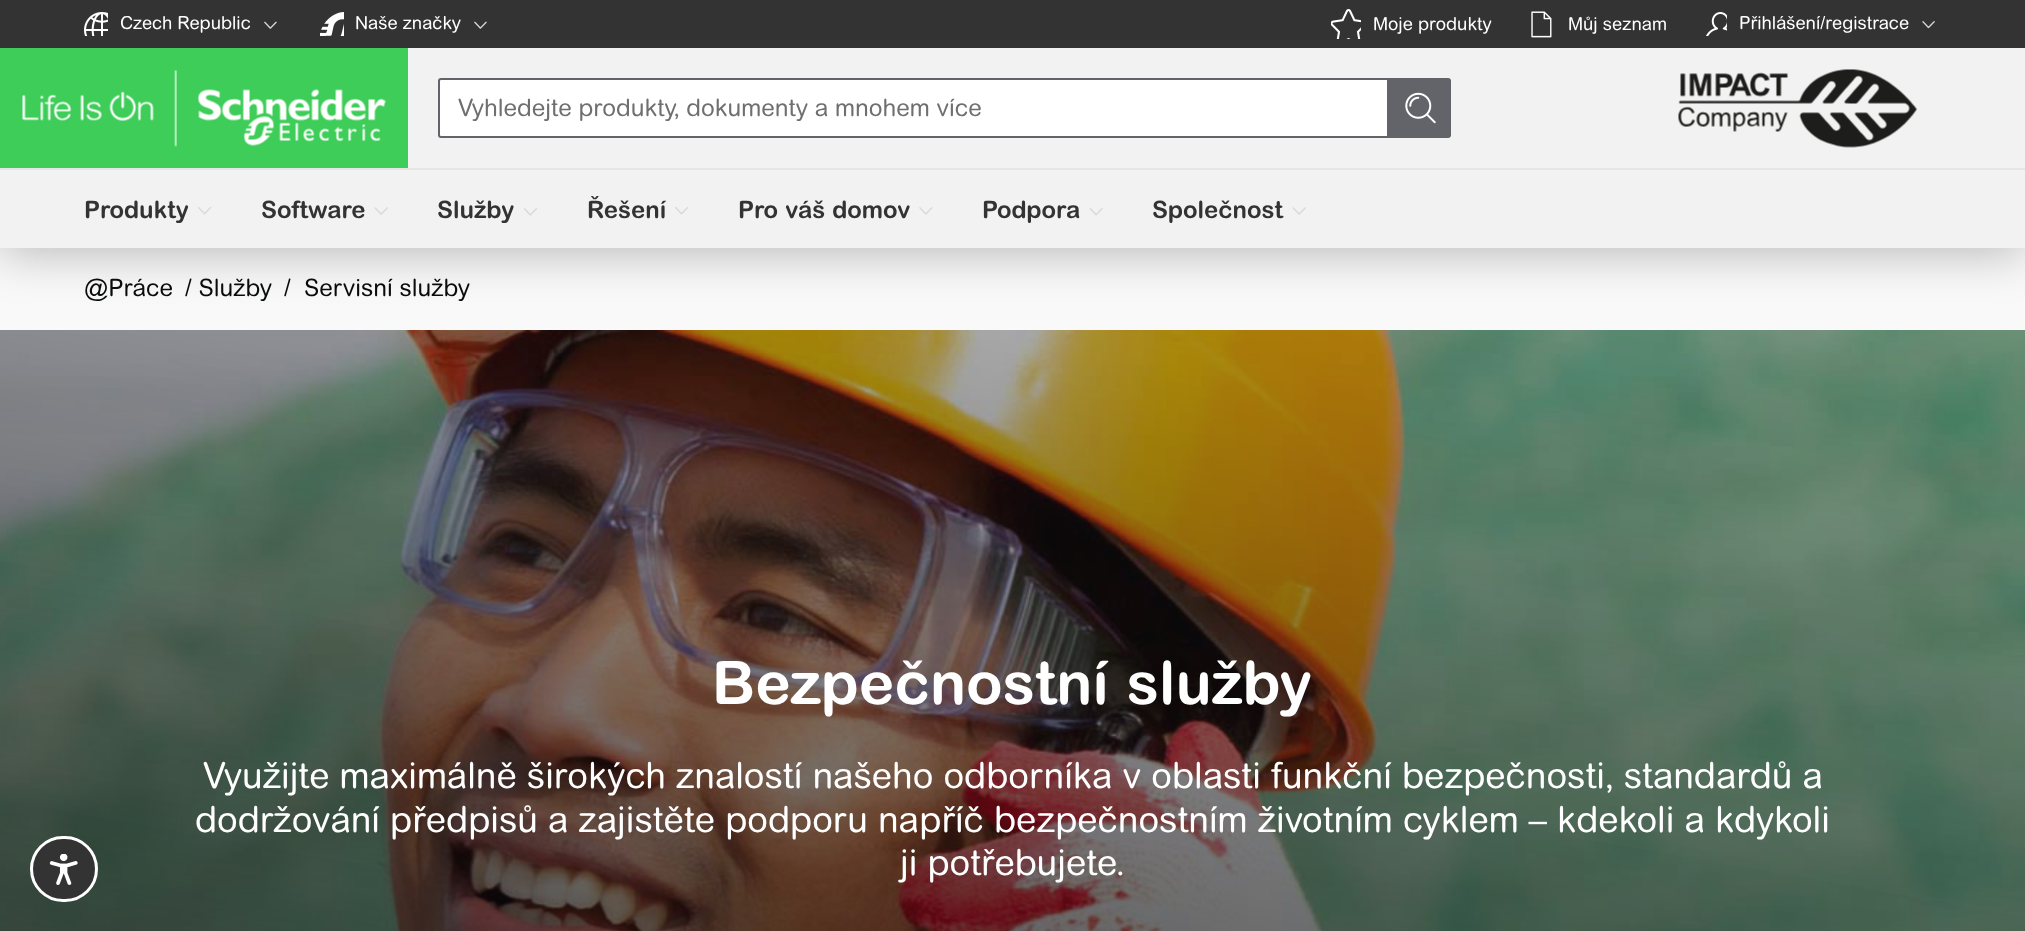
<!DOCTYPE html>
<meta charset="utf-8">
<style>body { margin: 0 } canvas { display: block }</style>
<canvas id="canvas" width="2025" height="931"></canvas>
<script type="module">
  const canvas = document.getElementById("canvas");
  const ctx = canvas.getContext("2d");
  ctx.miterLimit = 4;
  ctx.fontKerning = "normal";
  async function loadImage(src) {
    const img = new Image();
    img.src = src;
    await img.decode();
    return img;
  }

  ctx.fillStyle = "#f9f9f9";
  ctx.fillRect(0, 0, 2025, 931);
  ctx.fillStyle = "rgba(0, 0, 0, 0.25)";
  ctx.filter = "blur(24px)";
  ctx.beginPath();
  ctx.rect(0, 54, 2025, 200);
  ctx.fill();
  ctx.filter = "none";
  ctx.fillStyle = "#333333";
  ctx.fillRect(0, 0, 2025, 48);
  ctx.drawImage(await loadImage("img1.png"), 84, 12, 24, 24);
  ctx.font = "18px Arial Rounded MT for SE";
  ctx.fillStyle = "#ffffff";
  ctx.fillText("Czech Republic", 120, 29);
  ctx.drawImage(await loadImage("img2.png"), 264, 21, 13, 8);
  ctx.drawImage(await loadImage("img3.png"), 320, 12, 24, 24);
  ctx.fillText("Naše značky", 355, 29);
  ctx.drawImage(await loadImage("img4.png"), 474, 21, 13, 8);
  ctx.drawImage(await loadImage("img5.png"), 1331, 9, 30, 30);
  ctx.fillText("Moje produkty", 1373, 30);
  ctx.drawImage(await loadImage("img6.png"), 1531, 11, 21, 27);
  ctx.fillText("Můj seznam", 1568, 30);
  ctx.drawImage(await loadImage("img7.png"), 1706, 12, 21, 24);
  ctx.fillText("Přihlášení/registrace", 1739, 29);
  ctx.drawImage(await loadImage("img8.png"), 1922, 21, 13, 8);
  ctx.fillStyle = "#f3f2f2";
  ctx.fillRect(0, 48, 2025, 200);
  ctx.fillStyle = "#e7e6e6";
  ctx.fillRect(0, 168, 2025, 2);
  ctx.fillStyle = "#3dcd58";
  ctx.fillRect(0, 48, 408, 120);
  ctx.drawImage(await loadImage("img9.png"), 22, 70, 364, 77);
  ctx.fillStyle = "#ffffff";
  ctx.beginPath();
  ctx.roundRect(439, 79, 949, 58, [2, 0, 0, 2]);
  ctx.fill();
  ctx.strokeStyle = "#626469";
  ctx.lineWidth = 2;
  ctx.stroke();
  ctx.font = "24px Arial Rounded MT for SE";
  ctx.fillStyle = "#6f6f6f";
  ctx.fillText("Vyhledejte produkty, dokumenty a mnohem více", 458, 116);
  ctx.fillStyle = "#626469";
  ctx.beginPath();
  ctx.roundRect(1389, 78, 62, 60, [0, 3, 3, 0]);
  ctx.fill();
  ctx.drawImage(await loadImage("img10.png"), 1405, 92, 31, 32);
  ctx.drawImage(await loadImage("img11.png"), 1678, 69, 239, 79);
  ctx.font = "bold 24px Arial Rounded MT for SE";
  ctx.fillStyle = "#333333";
  ctx.fillText("Produkty", 84, 218);
  ctx.drawImage(await loadImage("img12.png"), 198, 207, 14, 8);
  ctx.fillText("Software", 261, 218);
  ctx.drawImage(await loadImage("img13.png"), 374, 207, 14, 8);
  ctx.fillText("Služby", 437, 218);
  ctx.drawImage(await loadImage("img14.png"), 524, 208, 13, 8);
  ctx.fillText("Řešení", 587, 218);
  ctx.drawImage(await loadImage("img15.png"), 675, 207, 14, 8);
  ctx.fillText("Pro váš domov", 738, 218);
  ctx.drawImage(await loadImage("img16.png"), 919, 207, 14, 8);
  ctx.fillText("Podpora", 982, 218);
  ctx.drawImage(await loadImage("img17.png"), 1089, 208, 14, 8);
  ctx.fillText("Společnost", 1152, 218);
  ctx.drawImage(await loadImage("img13.png"), 1292, 207, 14, 8);
  ctx.drawImage(await loadImage("img19.png"), 0, 330, 2025, 601);
  ctx.beginPath();
  ctx.roundRect(31.5, 837.5, 65, 63, 31.5);
  ctx.fill();
  ctx.strokeStyle = "#ffffff";
  ctx.lineWidth = 3;
  ctx.stroke();
  ctx.drawImage(await loadImage("img18.png"), 49, 854, 29, 31);
  ctx.font = "24px Arial Rounded MT for SE";
  ctx.fillStyle = "#090b0c";
  ctx.fillText("@Práce", 84, 296);
  ctx.fillText("/ Služby", 185, 296);
  ctx.fillText("/", 284, 296);
  ctx.fillText("Servisní služby", 304, 296);
  ctx.font = "bold 60px Arial Rounded MT for SE";
  ctx.fillStyle = "#ffffff";
  ctx.fillText("Bezpečnostní služby", 712, 704);
  ctx.font = "36px Arial Rounded MT for SE";
  ctx.fillText("Využijte maximálně širokých znalostí našeho odborníka v oblasti funkční bezpečnosti, standardů a", 203, 788);
  ctx.fillText("dodržování předpisů a zajistěte podporu napříč bezpečnostním životním cyklem – kdekoli a kdykoli", 195, 832);
  ctx.fillText("ji potřebujete.", 900, 875);
</script>
